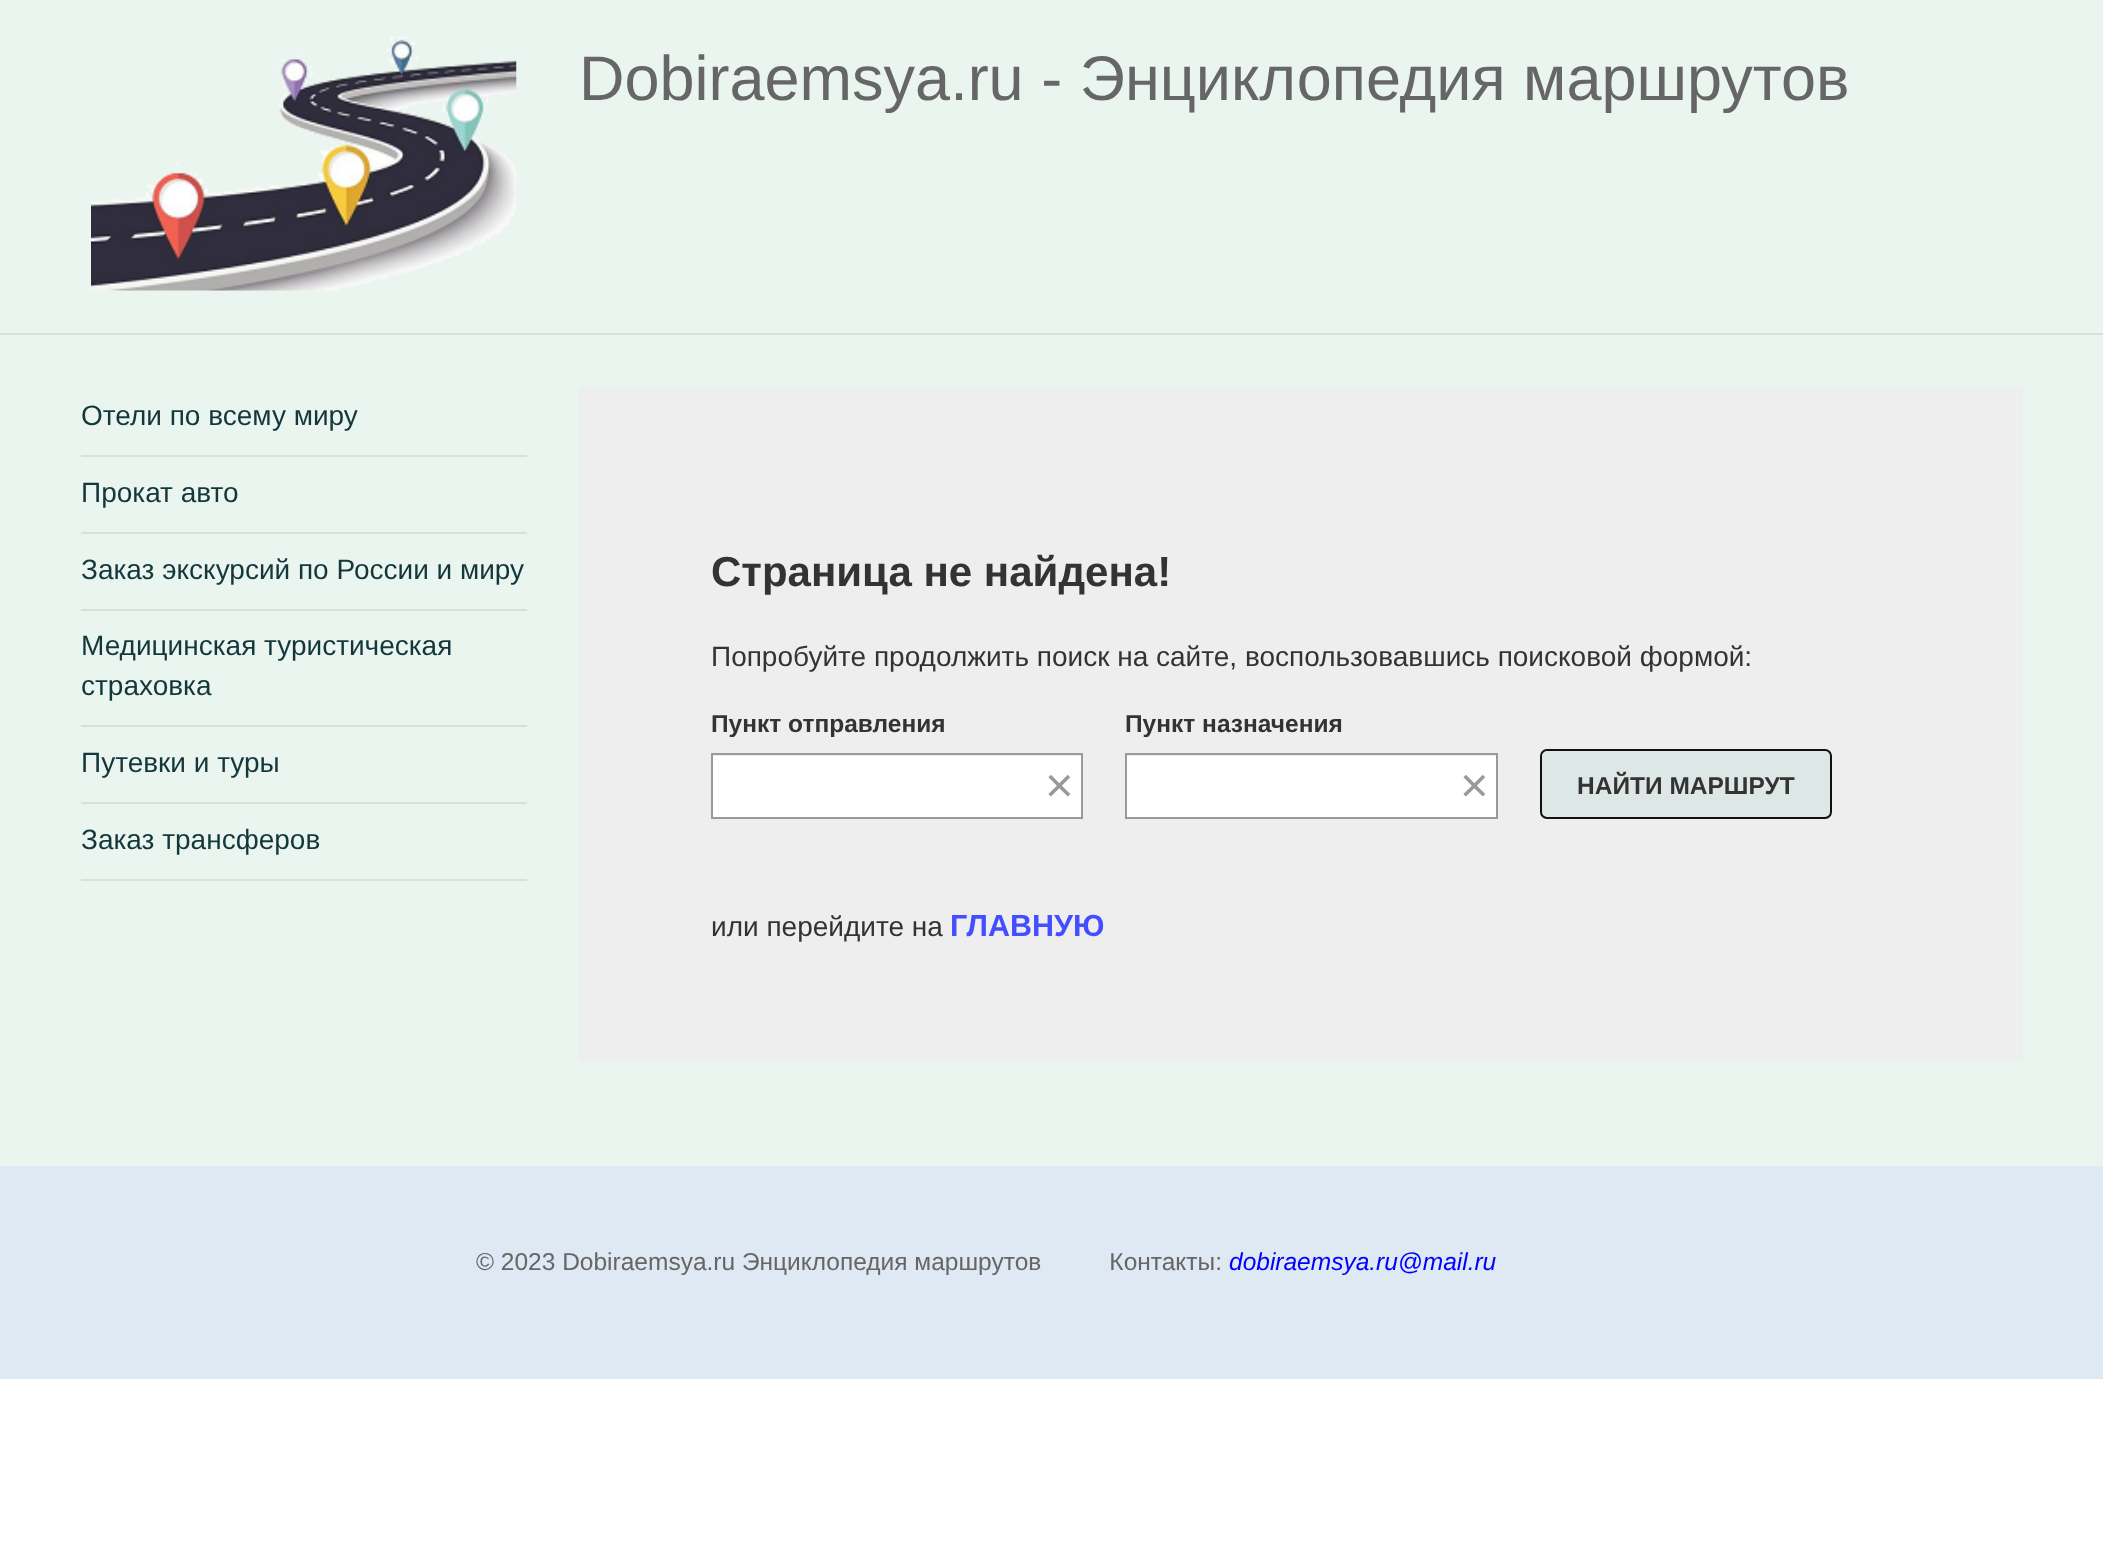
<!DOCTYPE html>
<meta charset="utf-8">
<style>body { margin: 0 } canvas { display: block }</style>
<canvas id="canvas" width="2103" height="1556"></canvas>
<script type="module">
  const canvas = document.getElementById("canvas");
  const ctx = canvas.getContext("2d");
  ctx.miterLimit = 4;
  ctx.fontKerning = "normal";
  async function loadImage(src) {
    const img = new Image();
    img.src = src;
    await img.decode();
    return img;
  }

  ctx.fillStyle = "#ffffff";
  ctx.fillRect(0, 0, 2103, 1556);
  ctx.fillStyle = "#ebf5f0";
  ctx.fillRect(0, 0, 2103, 1166);
  ctx.fillStyle = "#dddddd";
  ctx.fillRect(0, 333, 2103, 2);
  ctx.drawImage(await loadImage("img1.png"), 91, 36, 426, 255);
  ctx.font = "63px Liberation Sans";
  ctx.fillStyle = "#666666";
  ctx.fillText("Dobiraemsya.ru - Энциклопедия маршрутов", 579, 100);
  ctx.fillStyle = "#dddddd";
  ctx.fillRect(81, 455, 446, 2);
  ctx.font = "28px Liberation Sans";
  ctx.fillStyle = "#14373c";
  ctx.fillText("Отели по всему миру", 81, 425);
  ctx.fillStyle = "#dddddd";
  ctx.fillRect(81, 532, 446, 2);
  ctx.fillStyle = "#14373c";
  ctx.fillText("Прокат авто", 81, 502);
  ctx.fillStyle = "#dddddd";
  ctx.fillRect(81, 609, 446, 2);
  ctx.fillStyle = "#14373c";
  ctx.fillText("Заказ экскурсий по России и миру", 81, 579);
  ctx.fillStyle = "#dddddd";
  ctx.fillRect(81, 725, 446, 2);
  ctx.fillStyle = "#14373c";
  ctx.fillText("Медицинская туристическая", 81, 655);
  ctx.fillText("страховка", 81, 695);
  ctx.fillStyle = "#dddddd";
  ctx.fillRect(81, 802, 446, 2);
  ctx.fillStyle = "#14373c";
  ctx.fillText("Путевки и туры", 81, 772);
  ctx.fillStyle = "#dddddd";
  ctx.fillRect(81, 879, 446, 2);
  ctx.fillStyle = "#14373c";
  ctx.fillText("Заказ трансферов", 81, 849);
  ctx.fillStyle = "#eeeeee";
  ctx.fillRect(579, 387, 1444, 674);
  ctx.font = "bold 42px Liberation Sans";
  ctx.fillStyle = "#333333";
  ctx.fillText("Страница не найдена!", 711, 586);
  ctx.font = "28px Liberation Sans";
  ctx.fillText("Попробуйте продолжить поиск на сайте, воспользовавшись поисковой формой:", 711, 666);
  ctx.font = "bold 24.5px Liberation Sans";
  ctx.fillText("Пункт отправления", 711, 732);
  ctx.fillStyle = "#ffffff";
  ctx.fillRect(713, 756, 368, 61);
  ctx.strokeStyle = "#999999";
  ctx.lineWidth = 2;
  ctx.strokeRect(712, 754, 370, 64);
  ctx.font = "49px Liberation Sans";
  ctx.fillStyle = "#999999";
  ctx.fillText("×", 1045, 802);
  ctx.font = "bold 24.5px Liberation Sans";
  ctx.fillStyle = "#333333";
  ctx.fillText("Пункт назначения", 1125, 732);
  ctx.fillStyle = "#ffffff";
  ctx.fillRect(1127, 756, 369, 61);
  ctx.strokeRect(1126, 754, 371, 64);
  ctx.font = "49px Liberation Sans";
  ctx.fillStyle = "#999999";
  ctx.fillText("×", 1460, 802);
  ctx.fillStyle = "#dce7e6";
  ctx.beginPath();
  ctx.roundRect(1541, 750, 290, 68, 6);
  ctx.fill();
  ctx.strokeStyle = "#111111";
  ctx.stroke();
  ctx.font = "bold 24.5px Liberation Sans";
  ctx.fillStyle = "#333333";
  ctx.fillText("НАЙТИ МАРШРУТ", 1577, 794);
  ctx.font = "28px Liberation Sans";
  ctx.fillText("или перейдите на", 711, 936);
  ctx.font = "bold 30.5px Liberation Sans";
  ctx.fillStyle = "#424eff";
  ctx.fillText("ГЛАВНУЮ", 950, 936);
  ctx.fillStyle = "#dee9f4";
  ctx.fillRect(0, 1166, 2103, 213);
  ctx.font = "24.5px Liberation Sans";
  ctx.fillStyle = "#666666";
  ctx.fillText("© 2023 Dobiraemsya.ru Энциклопедия маршрутов          Контакты:", 476, 1270);
  ctx.font = "italic 24.5px Liberation Sans";
  ctx.fillStyle = "#0000ff";
  ctx.fillText("dobiraemsya.ru@mail.ru", 1229, 1270);
</script>
